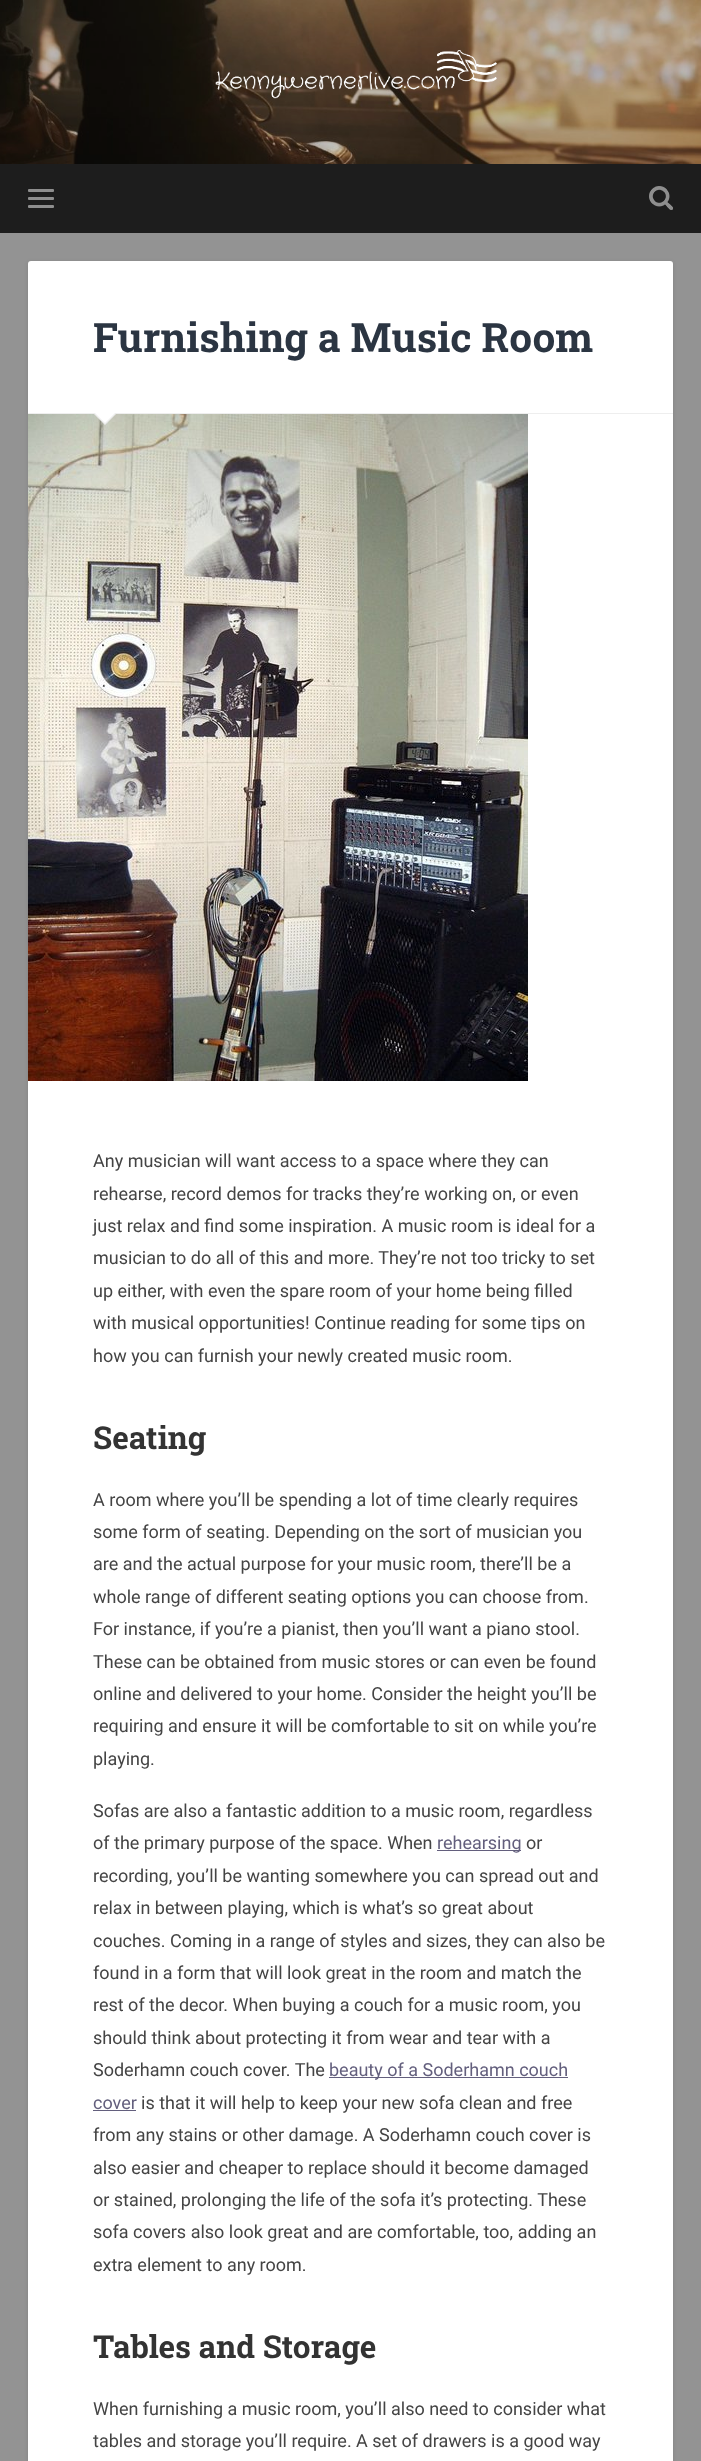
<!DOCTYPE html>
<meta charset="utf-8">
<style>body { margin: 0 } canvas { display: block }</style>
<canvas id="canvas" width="701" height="2461"></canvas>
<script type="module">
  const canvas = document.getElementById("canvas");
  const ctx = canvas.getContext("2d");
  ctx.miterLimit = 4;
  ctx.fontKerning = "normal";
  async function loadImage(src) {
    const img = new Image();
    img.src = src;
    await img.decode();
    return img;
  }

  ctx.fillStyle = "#939393";
  ctx.fillRect(0, 0, 701, 2461);
  ctx.drawImage(await loadImage("img1.png"), 0, 0, 701, 164);
  ctx.drawImage(await loadImage("img2.png"), 215, 50, 282, 49);
  ctx.fillStyle = "#1d1d1d";
  ctx.fillRect(0, 164, 701, 69);
  ctx.fillStyle = "#8e8e8e";
  ctx.beginPath();
  ctx.roundRect(28, 189, 26, 3, 1);
  ctx.fill();
  ctx.beginPath();
  ctx.roundRect(28, 197, 26, 3, 1);
  ctx.fill();
  ctx.beginPath();
  ctx.roundRect(28, 205, 26, 3, 1);
  ctx.fill();
  ctx.drawImage(await loadImage("img3.png"), 649, 186, 24, 24);
  ctx.fillStyle = "rgba(0, 0, 0, 0.1)";
  ctx.filter = "blur(2px)";
  ctx.beginPath();
  ctx.roundRect(28, 262, 645, 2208, 3);
  ctx.fill();
  ctx.filter = "none";
  ctx.fillStyle = "#ffffff";
  ctx.beginPath();
  ctx.roundRect(28, 261, 645, 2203, 3);
  ctx.fill();
  ctx.fillStyle = "#eeeeee";
  ctx.fillRect(28, 413, 645, 1);
  ctx.font = "bold 40.5px Roboto Slab";
  ctx.fillStyle = "#2b3542";
  ctx.fillText("Furnishing a Music Room", 93, 352);
  ctx.drawImage(await loadImage("img4.png"), 28, 414, 500, 667);
  ctx.fillStyle = "#eeeeee";
  ctx.beginPath();
  ctx.moveTo(93, 413);
  ctx.lineTo(117, 413);
  ctx.lineTo(105, 425);
  ctx.closePath();
  ctx.fill();
  ctx.fillStyle = "#ffffff";
  ctx.beginPath();
  ctx.moveTo(94, 412);
  ctx.lineTo(116, 412);
  ctx.lineTo(105, 423);
  ctx.closePath();
  ctx.fill();
  ctx.font = "18px Roboto";
  ctx.fillStyle = "#444444";
  ctx.fillText("Any musician will want access to a space where they can", 93, 1167);
  ctx.fillText("rehearse, record demos for tracks they’re working on, or even", 93, 1200);
  ctx.fillText("just relax and find some inspiration. A music room is ideal for a", 93, 1232);
  ctx.fillText("musician to do all of this and more. They’re not too tricky to set", 93, 1264);
  ctx.fillText("up either, with even the spare room of your home being filled", 93, 1297);
  ctx.fillText("with musical opportunities! Continue reading for some tips on", 93, 1329);
  ctx.fillText("how you can furnish your newly created music room.", 93, 1362);
  ctx.font = "bold 31.5px Roboto Slab";
  ctx.fillStyle = "#333333";
  ctx.fillText("Seating", 93, 1449);
  ctx.font = "18px Roboto";
  ctx.fillStyle = "#444444";
  ctx.fillText("A room where you’ll be spending a lot of time clearly requires", 93, 1506);
  ctx.fillText("some form of seating. Depending on the sort of musician you", 93, 1538);
  ctx.fillText("are and the actual purpose for your music room, there’ll be a", 93, 1570);
  ctx.fillText("whole range of different seating options you can choose from.", 93, 1603);
  ctx.fillText("For instance, if you’re a pianist, then you’ll want a piano stool.", 93, 1635);
  ctx.fillText("These can be obtained from music stores or can even be found", 93, 1668);
  ctx.fillText("online and delivered to your home. Consider the height you’ll be", 93, 1700);
  ctx.fillText("requiring and ensure it will be comfortable to sit on while you’re", 93, 1732);
  ctx.fillText("playing.", 93, 1765);
  ctx.fillText("Sofas are also a fantastic addition to a music room, regardless", 93, 1817);
  ctx.fillText("of the primary purpose of the space. When", 93, 1849);
  ctx.fillStyle = "#635f7d";
  ctx.fillRect(437, 1850, 84, 1);
  ctx.fillText("rehearsing", 437, 1849);
  ctx.fillStyle = "#444444";
  ctx.fillText("or", 526, 1849);
  ctx.fillText("recording, you’ll be wanting somewhere you can spread out and", 93, 1882);
  ctx.fillText("relax in between playing, which is what’s so great about", 93, 1914);
  ctx.fillText("couches. Coming in a range of styles and sizes, they can also be", 93, 1947);
  ctx.fillText("found in a form that will look great in the room and match the", 93, 1979);
  ctx.fillText("rest of the decor. When buying a couch for a music room, you", 93, 2011);
  ctx.fillText("should think about protecting it from wear and tear with a", 93, 2044);
  ctx.fillText("Soderhamn couch cover. The", 93, 2076);
  ctx.fillStyle = "#635f7d";
  ctx.fillRect(329, 2077, 239, 1);
  ctx.fillText("beauty of a Soderhamn couch", 329, 2076);
  ctx.fillText("cover", 93, 2109);
  ctx.fillRect(93, 2110, 43, 1);
  ctx.fillStyle = "#444444";
  ctx.fillText("is that it will help to keep your new sofa clean and free", 141, 2109);
  ctx.fillText("from any stains or other damage. A Soderhamn couch cover is", 93, 2141);
  ctx.fillText("also easier and cheaper to replace should it become damaged", 93, 2174);
  ctx.fillText("or stained, prolonging the life of the sofa it’s protecting. These", 93, 2206);
  ctx.fillText("sofa covers also look great and are comfortable, too, adding an", 93, 2238);
  ctx.fillText("extra element to any room.", 93, 2271);
  ctx.font = "bold 31.5px Roboto Slab";
  ctx.fillStyle = "#333333";
  ctx.fillText("Tables and Storage", 93, 2358);
  ctx.font = "18px Roboto";
  ctx.fillStyle = "#444444";
  ctx.fillText("When furnishing a music room, you’ll also need to consider what", 93, 2415);
  ctx.fillText("tables and storage you’ll require. A set of drawers is a good way", 93, 2447);
</script>
